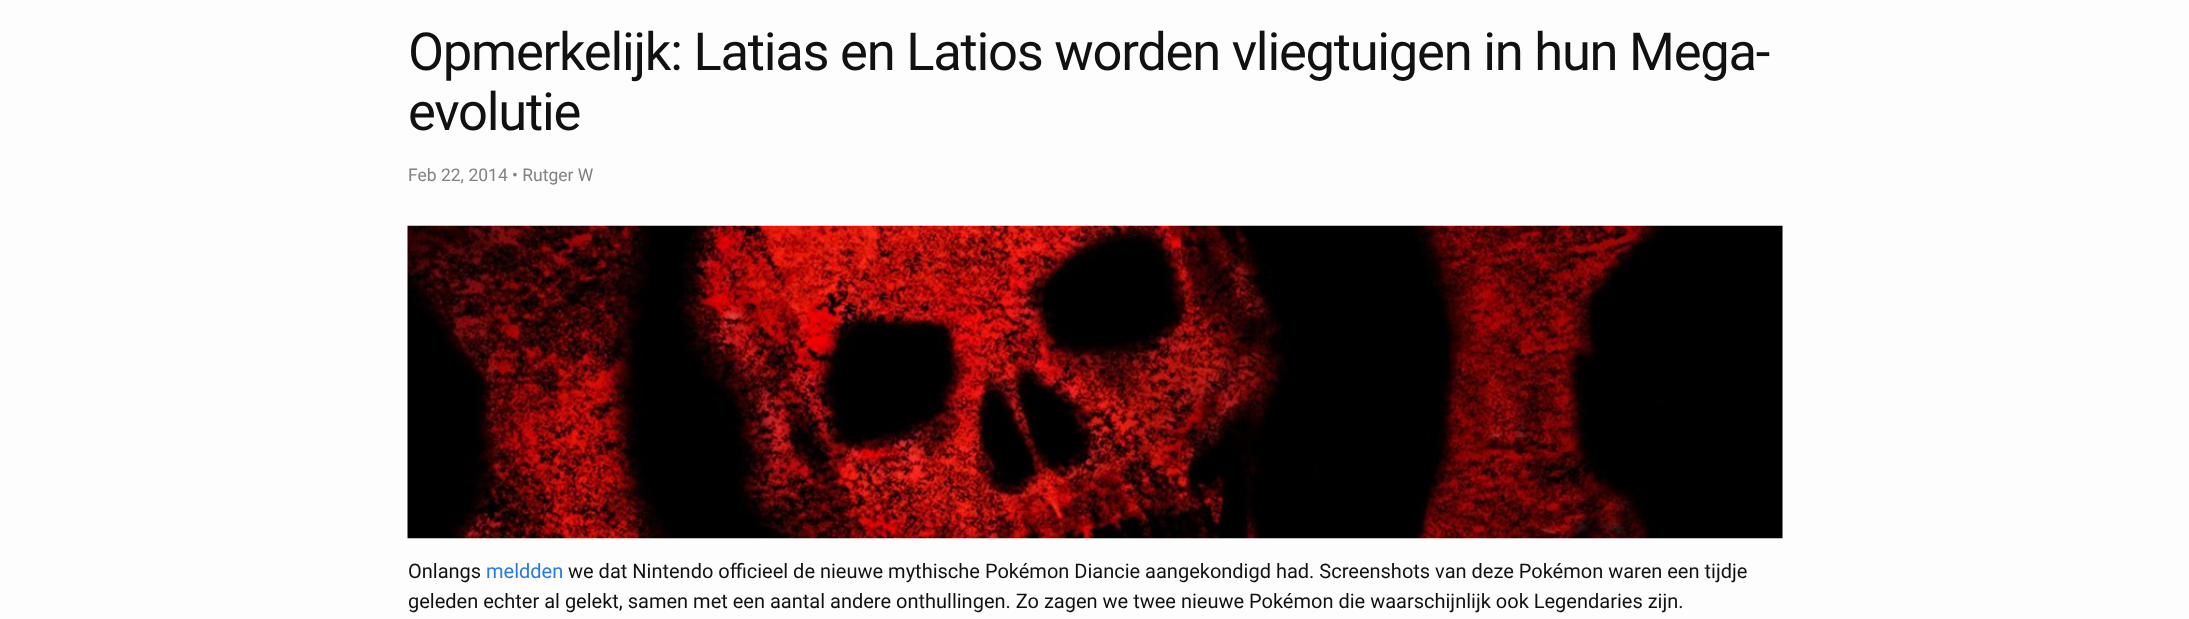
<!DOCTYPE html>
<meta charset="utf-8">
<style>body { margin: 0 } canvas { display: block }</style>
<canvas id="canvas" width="2189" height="619"></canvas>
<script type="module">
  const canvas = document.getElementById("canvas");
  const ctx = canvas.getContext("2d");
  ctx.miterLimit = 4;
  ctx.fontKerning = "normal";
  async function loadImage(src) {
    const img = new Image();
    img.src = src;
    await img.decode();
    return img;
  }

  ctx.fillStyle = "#fdfdfd";
  ctx.fillRect(0, 0, 2189, 619);
  ctx.letterSpacing = "-1.25px";
  ctx.font = "52.5px Roboto";
  ctx.fillStyle = "#111111";
  ctx.fillText("Opmerkelijk: Latias en Latios worden vliegtuigen in hun Mega-", 408, 70);
  ctx.fillText("evolutie", 408, 130);
  ctx.letterSpacing = "0px";
  ctx.font = "17.5px Roboto";
  ctx.fillStyle = "#828282";
  ctx.fillText("Feb 22, 2014 • Rutger W", 408, 181);
  ctx.drawImage(await loadImage("img1.png"), 407, 225, 1376, 314);
  ctx.font = "20px Roboto";
  ctx.fillStyle = "#111111";
  ctx.fillText("Onlangs", 408, 578);
  ctx.fillStyle = "#2a7ae2";
  ctx.fillText("meldden", 486, 578);
  ctx.fillStyle = "#111111";
  ctx.fillText("we dat Nintendo officieel de nieuwe mythische Pokémon Diancie aangekondigd had. Screenshots van deze Pokémon waren een tijdje", 568, 578);
  ctx.fillText("geleden echter al gelekt, samen met een aantal andere onthullingen. Zo zagen we twee nieuwe Pokémon die waarschijnlijk ook Legendaries zijn.", 408, 608);
</script>
